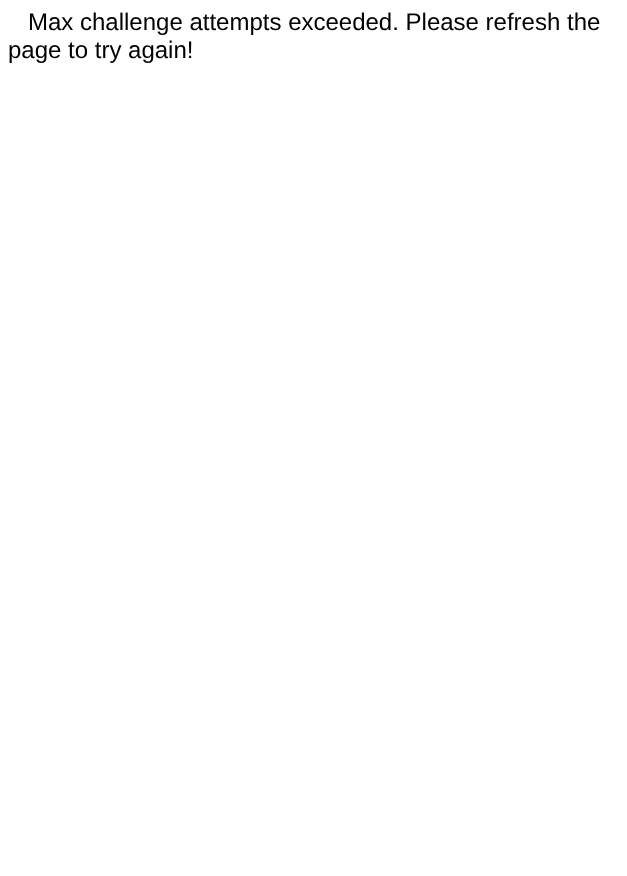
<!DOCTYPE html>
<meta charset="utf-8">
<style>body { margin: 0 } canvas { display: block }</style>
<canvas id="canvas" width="627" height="876"></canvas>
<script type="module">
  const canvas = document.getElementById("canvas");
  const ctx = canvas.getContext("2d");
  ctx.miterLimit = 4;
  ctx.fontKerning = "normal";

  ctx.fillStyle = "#ffffff";
  ctx.fillRect(0, 0, 627, 876);
  ctx.font = "24px Liberation Sans";
  ctx.fillStyle = "#000000";
  ctx.fillText("Max challenge attempts exceeded. Please refresh the", 28, 30);
  ctx.fillText("page to try again!", 8, 58);
</script>
